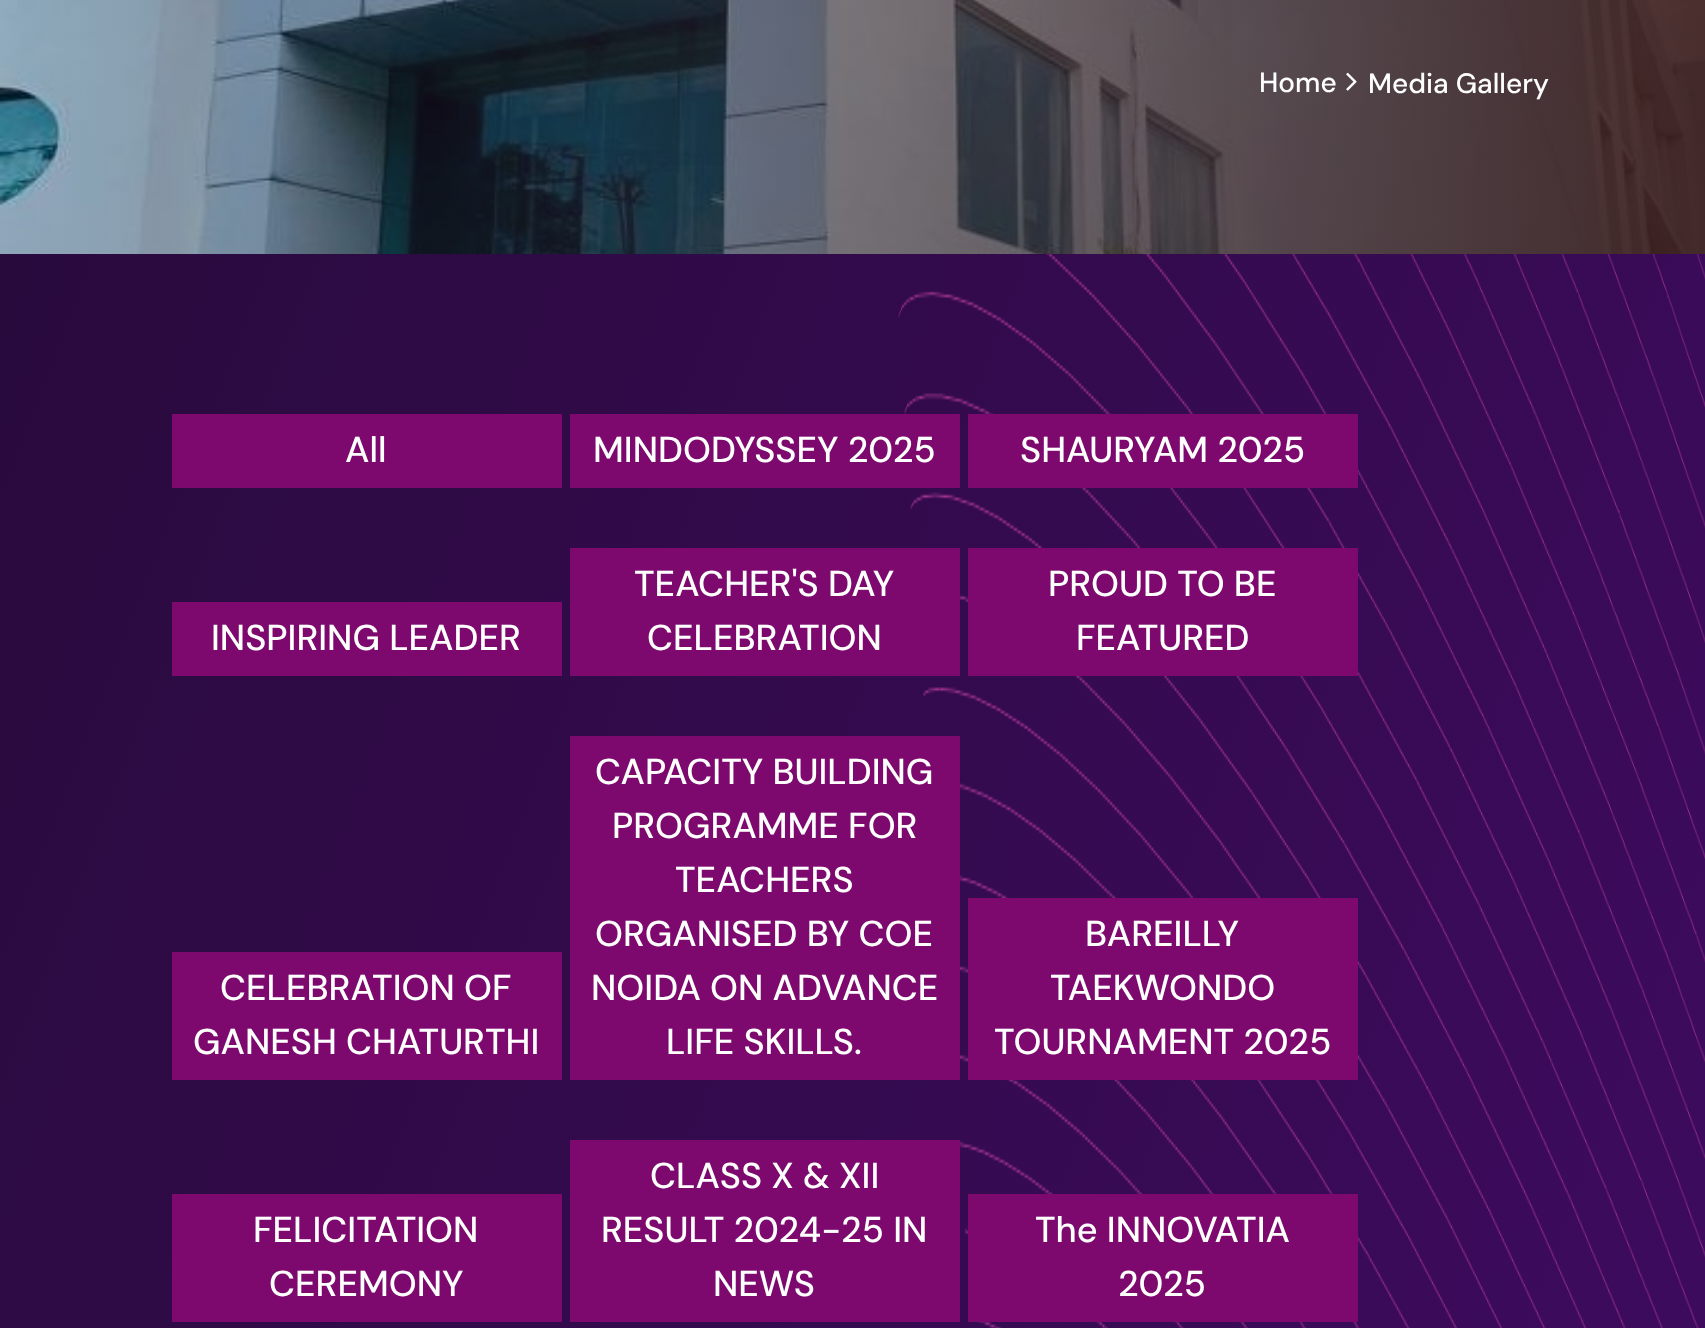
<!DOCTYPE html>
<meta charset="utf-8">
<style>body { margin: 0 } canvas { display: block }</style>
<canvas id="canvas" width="1705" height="1328"></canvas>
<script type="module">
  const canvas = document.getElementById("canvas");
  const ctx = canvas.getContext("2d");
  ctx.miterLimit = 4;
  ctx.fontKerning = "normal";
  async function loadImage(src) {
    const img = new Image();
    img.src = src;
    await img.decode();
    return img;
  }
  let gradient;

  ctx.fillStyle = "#ffffff";
  ctx.fillRect(0, 0, 1705, 1328);
  gradient = ctx.createLinearGradient(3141, 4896, -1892, 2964);
  gradient.addColorStop(0.05, "#2b0940");
  gradient.addColorStop(0.42, "#410b64");
  gradient.addColorStop(1, "#210a30");
  ctx.fillStyle = gradient;
  ctx.fillRect(0, 254, 1705, 1074);
  ctx.drawImage(await loadImage("img1.png"), 897, 254, 808, 1074);
  ctx.drawImage(await loadImage("img2.png"), 0, 0, 1705, 254);
  ctx.font = "500 28px DM Sans";
  ctx.fillStyle = "#ffffff";
  ctx.fillText("Home", 1259, 92);
  ctx.drawImage(await loadImage("img3.png"), 1346, 72, 11, 19);
  ctx.fillText("Media Gallery", 1368, 93);
  ctx.fillStyle = "#7d096f";
  ctx.fillRect(172, 414, 390, 74);
  ctx.font = "500 36px DM Sans";
  ctx.fillStyle = "#ffffff";
  ctx.fillText("All", 345, 462);
  ctx.fillStyle = "#7d096f";
  ctx.fillRect(570, 414, 390, 74);
  ctx.fillStyle = "#ffffff";
  ctx.fillText("MINDODYSSEY 2025", 593, 462);
  ctx.fillStyle = "#7d096f";
  ctx.fillRect(968, 414, 390, 74);
  ctx.fillStyle = "#ffffff";
  ctx.fillText("SHAURYAM 2025", 1020, 462);
  ctx.fillStyle = "#7d096f";
  ctx.fillRect(172, 602, 390, 74);
  ctx.fillStyle = "#ffffff";
  ctx.fillText("INSPIRING LEADER", 211, 650);
  ctx.fillStyle = "#7d096f";
  ctx.fillRect(570, 548, 390, 128);
  ctx.fillStyle = "#ffffff";
  ctx.fillText("TEACHER'S DAY", 634, 596);
  ctx.fillText("CELEBRATION", 647, 650);
  ctx.fillStyle = "#7d096f";
  ctx.fillRect(968, 548, 390, 128);
  ctx.fillStyle = "#ffffff";
  ctx.fillText("PROUD TO BE", 1048, 596);
  ctx.fillText("FEATURED", 1076, 650);
  ctx.fillStyle = "#7d096f";
  ctx.fillRect(172, 952, 390, 128);
  ctx.fillStyle = "#ffffff";
  ctx.fillText("CELEBRATION OF", 220, 1000);
  ctx.fillText("GANESH CHATURTHI", 193, 1054);
  ctx.fillStyle = "#7d096f";
  ctx.fillRect(570, 736, 390, 344);
  ctx.fillStyle = "#ffffff";
  ctx.fillText("CAPACITY BUILDING", 595, 784);
  ctx.fillText("PROGRAMME FOR", 612, 838);
  ctx.fillText("TEACHERS", 675, 892);
  ctx.fillText("ORGANISED BY COE", 595, 946);
  ctx.fillText("NOIDA ON ADVANCE", 591, 1000);
  ctx.fillText("LIFE SKILLS.", 666, 1054);
  ctx.fillStyle = "#7d096f";
  ctx.fillRect(968, 898, 390, 182);
  ctx.fillStyle = "#ffffff";
  ctx.fillText("BAREILLY", 1085, 946);
  ctx.fillText("TAEKWONDO", 1050, 1000);
  ctx.fillText("TOURNAMENT 2025", 994, 1054);
  ctx.fillStyle = "#7d096f";
  ctx.fillRect(172, 1194, 390, 128);
  ctx.fillStyle = "#ffffff";
  ctx.fillText("FELICITATION", 253, 1242);
  ctx.fillText("CEREMONY", 269, 1296);
  ctx.fillStyle = "#7d096f";
  ctx.fillRect(570, 1140, 390, 182);
  ctx.fillStyle = "#ffffff";
  ctx.fillText("CLASS X & XII", 650, 1188);
  ctx.fillText("RESULT 2024-25 IN", 601, 1242);
  ctx.fillText("NEWS", 713, 1296);
  ctx.fillStyle = "#7d096f";
  ctx.fillRect(968, 1194, 390, 128);
  ctx.fillStyle = "#ffffff";
  ctx.fillText("The INNOVATIA", 1035, 1242);
  ctx.fillText("2025", 1118, 1296);
</script>
